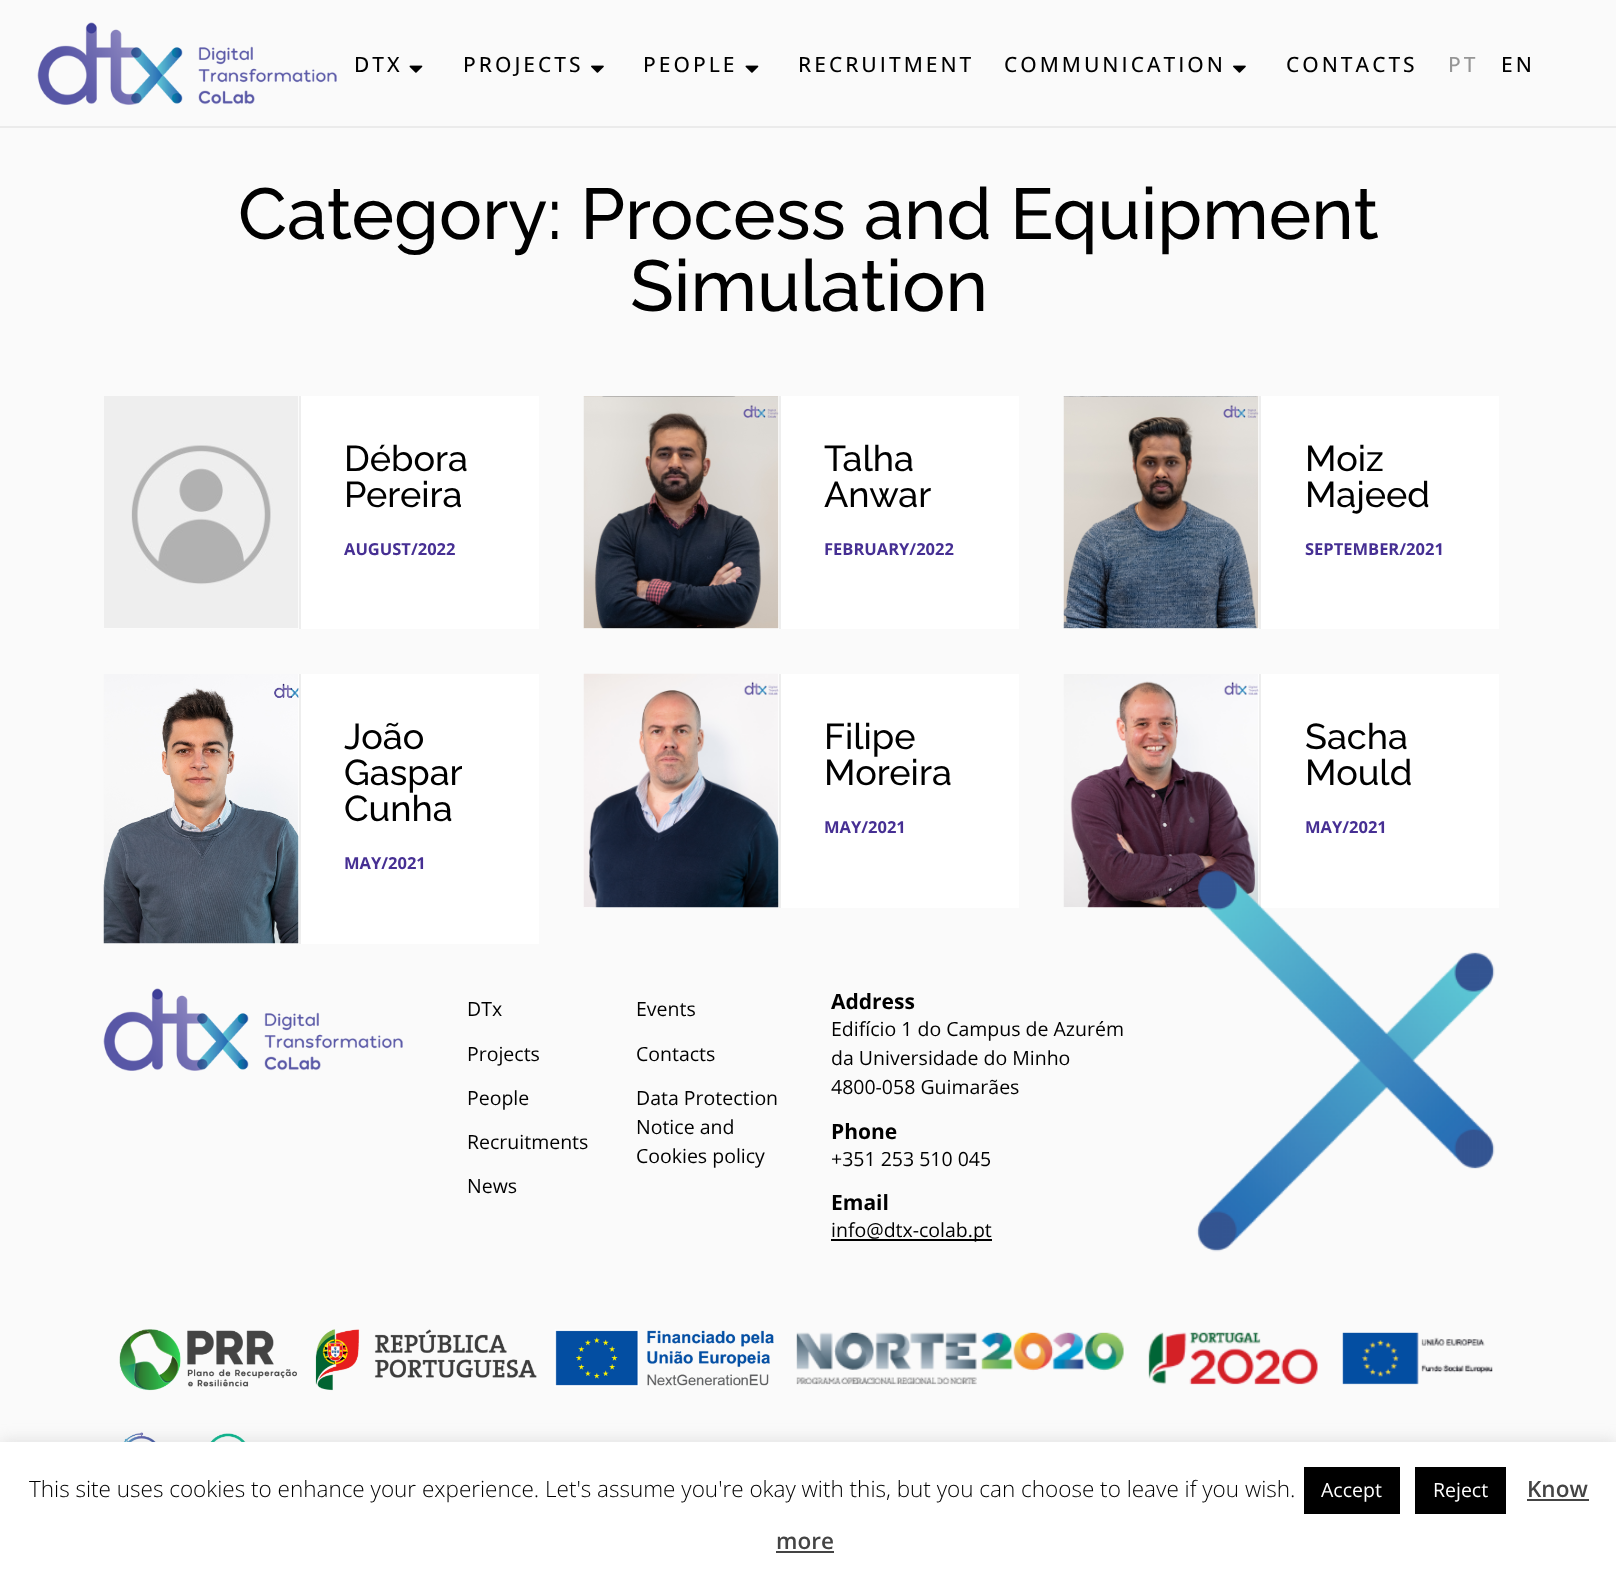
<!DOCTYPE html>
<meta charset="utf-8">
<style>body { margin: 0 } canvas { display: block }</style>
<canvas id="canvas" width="1616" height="1575"></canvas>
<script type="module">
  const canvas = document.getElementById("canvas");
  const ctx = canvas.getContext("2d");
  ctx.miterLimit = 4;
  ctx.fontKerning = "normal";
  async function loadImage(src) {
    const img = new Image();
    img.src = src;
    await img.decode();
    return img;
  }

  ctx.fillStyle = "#fafafa";
  ctx.fillRect(0, 0, 1616, 1575);
  ctx.fillStyle = "#ebebeb";
  ctx.fillRect(0, 126, 1616, 2);
  ctx.drawImage(await loadImage("img1.png"), 37, 22, 300, 83);
  ctx.letterSpacing = "3px";
  ctx.font = "500 21px Open Sans";
  ctx.fillStyle = "#000000";
  ctx.fillText("DTX", 354, 72);
  ctx.drawImage(await loadImage("img2.png"), 409, 65, 14, 8);
  ctx.fillText("PROJECTS", 463, 72);
  ctx.drawImage(await loadImage("img3.png"), 591, 65, 13, 8);
  ctx.fillText("PEOPLE", 643, 72);
  ctx.drawImage(await loadImage("img2.png"), 745, 65, 14, 8);
  ctx.fillText("RECRUITMENT", 798, 72);
  ctx.fillText("COMMUNICATION", 1004, 72);
  ctx.drawImage(await loadImage("img3.png"), 1233, 65, 13, 8);
  ctx.fillText("CONTACTS", 1286, 72);
  ctx.fillStyle = "#969696";
  ctx.fillText("PT", 1448, 72);
  ctx.fillStyle = "#000000";
  ctx.fillText("EN", 1501, 72);
  ctx.letterSpacing = "0px";
  ctx.font = "500 72px Raleway";
  ctx.fillText("Category: Process and Equipment", 238, 239);
  ctx.fillText("Simulation", 630, 311);
  ctx.fillStyle = "#ffffff";
  ctx.fillRect(104, 396, 435, 233);
  ctx.fillStyle = "#eeeeee";
  ctx.fillRect(299, 396, 2, 233);
  ctx.drawImage(await loadImage("img4.png"), 104, 396, 195, 233);
  ctx.font = "500 36px Raleway";
  ctx.fillStyle = "#000000";
  ctx.fillText("Débora", 344, 471);
  ctx.fillText("Pereira", 344, 507);
  ctx.font = "bold 16.5px Open Sans";
  ctx.fillStyle = "#462f93";
  ctx.fillText("AUGUST/2022", 344, 555);
  ctx.fillStyle = "#ffffff";
  ctx.fillRect(584, 396, 435, 233);
  ctx.fillStyle = "#eeeeee";
  ctx.fillRect(779, 396, 2, 233);
  ctx.drawImage(await loadImage("img5.png"), 583, 396, 196, 233);
  ctx.font = "500 36px Raleway";
  ctx.fillStyle = "#000000";
  ctx.fillText("Talha", 824, 471);
  ctx.fillText("Anwar", 824, 507);
  ctx.font = "bold 16.5px Open Sans";
  ctx.fillStyle = "#462f93";
  ctx.fillText("FEBRUARY/2022", 824, 555);
  ctx.fillStyle = "#ffffff";
  ctx.fillRect(1064, 396, 435, 233);
  ctx.fillStyle = "#eeeeee";
  ctx.fillRect(1259, 396, 2, 233);
  ctx.drawImage(await loadImage("img6.png"), 1063, 396, 196, 233);
  ctx.font = "500 36px Raleway";
  ctx.fillStyle = "#000000";
  ctx.fillText("Moiz", 1305, 471);
  ctx.fillText("Majeed", 1305, 507);
  ctx.font = "bold 16.5px Open Sans";
  ctx.fillStyle = "#462f93";
  ctx.fillText("SEPTEMBER/2021", 1305, 555);
  ctx.fillStyle = "#ffffff";
  ctx.fillRect(104, 674, 435, 270);
  ctx.fillStyle = "#eeeeee";
  ctx.fillRect(299, 674, 2, 270);
  ctx.drawImage(await loadImage("img7.png"), 103, 674, 196, 270);
  ctx.font = "500 36px Raleway";
  ctx.fillStyle = "#000000";
  ctx.fillText("João", 344, 749);
  ctx.fillText("Gaspar", 344, 785);
  ctx.fillText("Cunha", 344, 821);
  ctx.font = "bold 16.5px Open Sans";
  ctx.fillStyle = "#462f93";
  ctx.fillText("MAY/2021", 344, 869);
  ctx.fillStyle = "#ffffff";
  ctx.fillRect(584, 674, 435, 234);
  ctx.fillStyle = "#eeeeee";
  ctx.fillRect(779, 674, 2, 234);
  ctx.drawImage(await loadImage("img8.png"), 583, 673, 196, 235);
  ctx.font = "500 36px Raleway";
  ctx.fillStyle = "#000000";
  ctx.fillText("Filipe", 824, 749);
  ctx.fillText("Moreira", 824, 785);
  ctx.font = "bold 16.5px Open Sans";
  ctx.fillStyle = "#462f93";
  ctx.fillText("MAY/2021", 824, 833);
  ctx.fillStyle = "#ffffff";
  ctx.fillRect(1064, 674, 435, 234);
  ctx.fillStyle = "#eeeeee";
  ctx.fillRect(1259, 674, 2, 234);
  ctx.drawImage(await loadImage("img9.png"), 1063, 674, 196, 234);
  ctx.font = "500 36px Raleway";
  ctx.fillStyle = "#000000";
  ctx.fillText("Sacha", 1305, 749);
  ctx.fillText("Mould", 1305, 785);
  ctx.font = "bold 16.5px Open Sans";
  ctx.fillStyle = "#462f93";
  ctx.fillText("MAY/2021", 1305, 833);
  ctx.drawImage(await loadImage("img1.png"), 103, 988, 300, 83);
  ctx.font = "19.5px Open Sans";
  ctx.fillStyle = "#000000";
  ctx.fillText("DTx", 467, 1016);
  ctx.fillText("Events", 636, 1016);
  ctx.fillText("Projects", 467, 1061);
  ctx.fillText("Contacts", 636, 1061);
  ctx.fillText("People", 467, 1105);
  ctx.fillText("Data Protection", 636, 1105);
  ctx.fillText("Notice and", 636, 1134);
  ctx.fillText("Cookies policy", 636, 1163);
  ctx.fillText("Recruitments", 467, 1149);
  ctx.fillText("News", 467, 1193);
  ctx.font = "bold 21px Open Sans";
  ctx.fillText("Address", 831, 1009);
  ctx.font = "19.5px Open Sans";
  ctx.fillText("Edifício 1 do Campus de Azurém", 831, 1036);
  ctx.fillText("da Universidade do Minho", 831, 1065);
  ctx.fillText("4800-058 Guimarães", 831, 1094);
  ctx.font = "bold 21px Open Sans";
  ctx.fillText("Phone", 831, 1139);
  ctx.font = "19.5px Open Sans";
  ctx.fillText("+351 253 510 045", 831, 1166);
  ctx.font = "bold 21px Open Sans";
  ctx.fillText("Email", 831, 1210);
  ctx.fillRect(831, 1239, 161, 2);
  ctx.font = "19.5px Open Sans";
  ctx.fillText("info@dtx-colab.pt", 831, 1237);
  ctx.drawImage(await loadImage("img10.png"), 1196, 870, 299, 382);
  ctx.drawImage(await loadImage("img11.png"), 119, 1329, 655, 113);
  ctx.drawImage(await loadImage("img12.png"), 796, 1332, 697, 53);
  ctx.fillStyle = "rgba(172, 171, 171, 0.3)";
  ctx.filter = "blur(7.5px)";
  ctx.beginPath();
  ctx.rect(0, 1440, 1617, 134);
  ctx.fill();
  ctx.filter = "none";
  ctx.fillStyle = "#ffffff";
  ctx.fillRect(0, 1442, 1616, 133);
  ctx.font = "300 22.5px Open Sans";
  ctx.fillStyle = "#000000";
  ctx.fillText("This site uses cookies to enhance your experience. Let's assume you're okay with this, but you can choose to leave if you wish.", 29, 1497);
  ctx.fillRect(1304, 1467, 96, 47);
  ctx.font = "19.5px Open Sans";
  ctx.fillStyle = "#ffffff";
  ctx.fillText("Accept", 1321, 1497);
  ctx.fillStyle = "#000000";
  ctx.fillRect(1415, 1467, 91, 47);
  ctx.fillStyle = "#ffffff";
  ctx.fillText("Reject", 1433, 1497);
  ctx.font = "600 22.5px Open Sans";
  ctx.fillStyle = "#444444";
  ctx.fillText("Know", 1527, 1497);
  ctx.fillRect(1527, 1499, 62, 2);
  ctx.fillText("more", 776, 1549);
  ctx.fillRect(776, 1551, 58, 2);
</script>
